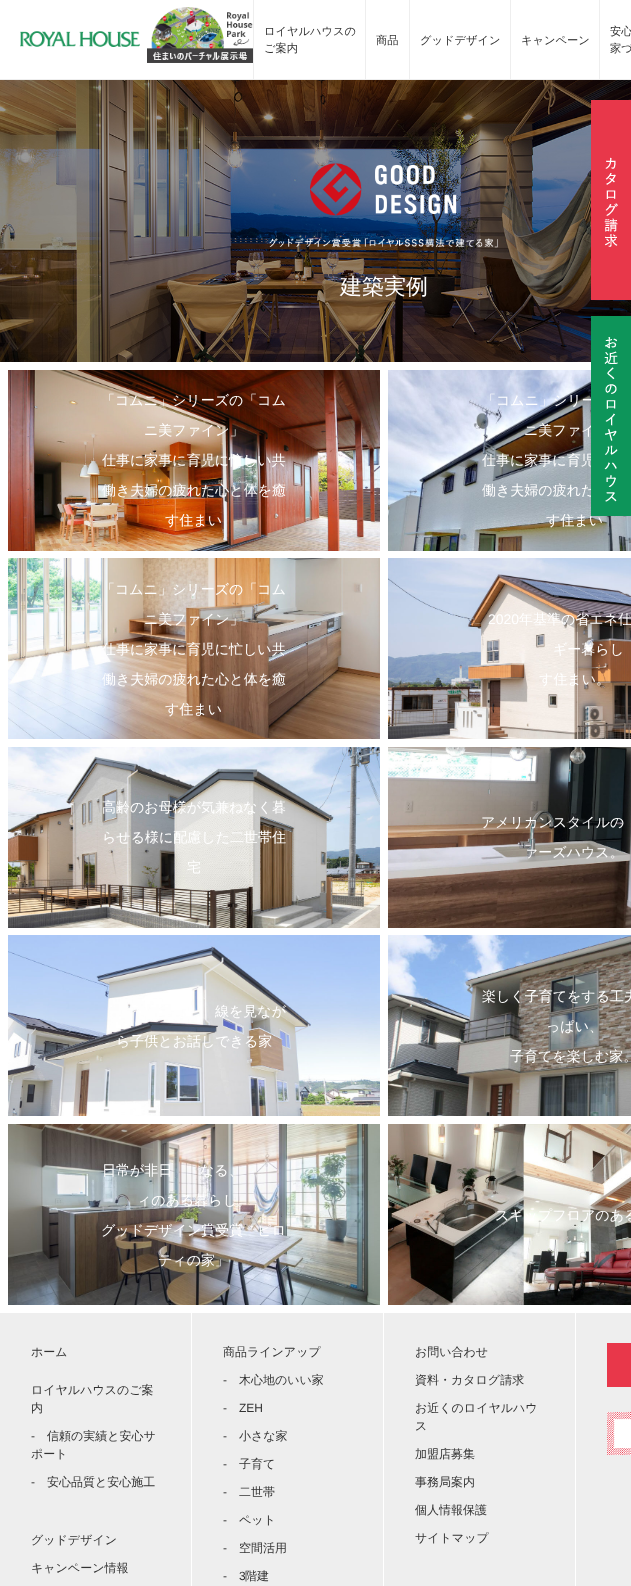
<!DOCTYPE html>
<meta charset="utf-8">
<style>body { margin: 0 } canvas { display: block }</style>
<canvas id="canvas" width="631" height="1586"></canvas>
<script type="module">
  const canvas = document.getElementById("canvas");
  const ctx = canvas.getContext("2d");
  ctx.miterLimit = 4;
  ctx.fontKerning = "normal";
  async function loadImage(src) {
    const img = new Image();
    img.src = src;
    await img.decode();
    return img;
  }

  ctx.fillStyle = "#ffffff";
  ctx.fillRect(0, 0, 631, 1586);
  ctx.fillStyle = "#eeeeee";
  ctx.fillRect(0, 79, 631, 1);
  ctx.drawImage(await loadImage("img1.png"), 20, 31, 120, 16);
  ctx.drawImage(await loadImage("img2.png"), 147, 7, 106, 56);
  ctx.fillRect(365, 0, 1, 80);
  ctx.fillRect(253, 0, 1, 80);
  ctx.font = "500 11.25px WenQuanYi Zen Hei";
  ctx.fillStyle = "#333333";
  ctx.fillText("ロイヤルハウスの", 264, 35);
  ctx.fillText("ご案内", 264, 52);
  ctx.fillStyle = "#eeeeee";
  ctx.fillRect(409, 0, 1, 80);
  ctx.fillStyle = "#333333";
  ctx.fillText("商品", 376, 44);
  ctx.fillStyle = "#eeeeee";
  ctx.fillRect(510, 0, 1, 80);
  ctx.fillStyle = "#333333";
  ctx.fillText("グッドデザイン", 420, 44);
  ctx.fillStyle = "#eeeeee";
  ctx.fillRect(599, 0, 1, 80);
  ctx.fillStyle = "#333333";
  ctx.fillText("キャンペーン", 521, 44);
  ctx.fillText("安心", 610, 35);
  ctx.fillText("家づ", 610, 52);
  ctx.drawImage(await loadImage("img3.png"), 0, 80, 631, 282);
  ctx.drawImage(await loadImage("img4.png"), 269, 163, 229, 85);
  ctx.font = "500 22px WenQuanYi Zen Hei";
  ctx.fillStyle = "#ffffff";
  ctx.fillText("建築実例", 340, 294);
  ctx.drawImage(await loadImage("img5.png"), 8, 370, 372, 181);
  ctx.font = "500 14px WenQuanYi Zen Hei";
  ctx.fillText("「コムニ」シリーズの「コム", 101, 405);
  ctx.fillText("ニ美ファイン」", 144, 435);
  ctx.fillText("仕事に家事に育児に忙しい共", 102, 465);
  ctx.fillText("働き夫婦の疲れた心と体を癒", 102, 495);
  ctx.fillText("す住まい", 165, 525);
  ctx.drawImage(await loadImage("img6.png"), 388, 370, 243, 181);
  ctx.fillText("「コムニ」シリー", 482, 405);
  ctx.fillText("ニ美ファイ", 524, 435);
  ctx.fillText("仕事に家事に育児", 482, 465);
  ctx.fillText("働き夫婦の疲れた", 482, 495);
  ctx.fillText("す住まい", 546, 525);
  ctx.drawImage(await loadImage("img7.png"), 8, 558, 372, 181);
  ctx.fillText("「コムニ」シリーズの「コム", 101, 594);
  ctx.fillText("ニ美ファイン」", 144, 624);
  ctx.fillText("仕事に家事に育児に忙しい共", 102, 654);
  ctx.fillText("働き夫婦の疲れた心と体を癒", 102, 684);
  ctx.fillText("す住まい", 165, 714);
  ctx.drawImage(await loadImage("img8.png"), 388, 558, 243, 181);
  ctx.font = "14px Liberation Sans";
  ctx.fillText("2020", 488, 624);
  ctx.font = "500 14px WenQuanYi Zen Hei";
  ctx.fillText("年基準の省エネ仕", 519, 624);
  ctx.fillText("ギー暮らし", 553, 654);
  ctx.fillText("す住まい。", 539, 684);
  ctx.drawImage(await loadImage("img9.png"), 8, 747, 372, 181);
  ctx.fillText("高齢のお母様が気兼ねなく暮", 102, 812);
  ctx.fillText("らせる様に配慮した二世帯住", 102, 842);
  ctx.fillText("宅", 187, 872);
  ctx.drawImage(await loadImage("img10.png"), 388, 747, 243, 181);
  ctx.fillText("アメリカンスタイルの", 481, 827);
  ctx.fillText("ァーズハウス。", 524, 857);
  ctx.drawImage(await loadImage("img11.png"), 8, 935, 372, 181);
  ctx.fillText("線を見なが", 215, 1016);
  ctx.fillText("ら子供とお話しできる家", 116, 1046);
  ctx.drawImage(await loadImage("img12.png"), 388, 935, 243, 181);
  ctx.fillText("楽しく子育てをする工夫", 482, 1001);
  ctx.fillText("っぱい、", 546, 1031);
  ctx.fillText("子育てを楽しむ家。", 510, 1061);
  ctx.drawImage(await loadImage("img13.png"), 8, 1124, 372, 181);
  ctx.fillText("日常が非日", 102, 1175);
  ctx.fillText("なる、", 200, 1175);
  ctx.fillText("ィのある暮らし。", 137, 1205);
  ctx.fillText("グッドデザイン賞受賞「ピロ", 101, 1235);
  ctx.fillText("ティの家」", 158, 1265);
  ctx.drawImage(await loadImage("img14.png"), 388, 1124, 243, 181);
  ctx.fillText("スキップフロアのある", 495, 1220);
  ctx.fillStyle = "#eeeeee";
  ctx.fillRect(0, 1313, 631, 273);
  ctx.fillStyle = "#ffffff";
  ctx.fillRect(191, 1313, 1, 273);
  ctx.font = "500 12px WenQuanYi Zen Hei";
  ctx.fillStyle = "#333333";
  ctx.fillText("ホーム", 31, 1356);
  ctx.fillText("ロイヤルハウスのご案", 31, 1394);
  ctx.fillText("内", 31, 1412);
  ctx.font = "12px Liberation Sans";
  ctx.fillText("-", 31, 1440);
  ctx.font = "500 12px WenQuanYi Zen Hei";
  ctx.fillText("信頼の実績と安心サ", 47, 1440);
  ctx.fillText("ポート", 31, 1458);
  ctx.font = "12px Liberation Sans";
  ctx.fillText("-", 31, 1486);
  ctx.font = "500 12px WenQuanYi Zen Hei";
  ctx.fillText("安心品質と安心施工", 47, 1486);
  ctx.fillText("グッドデザイン", 31, 1544);
  ctx.fillText("キャンペーン情報", 31, 1572);
  ctx.fillStyle = "#ffffff";
  ctx.fillRect(383, 1313, 1, 273);
  ctx.fillStyle = "#333333";
  ctx.fillText("商品ラインアップ", 223, 1356);
  ctx.font = "12px Liberation Sans";
  ctx.fillText("-", 223, 1384);
  ctx.font = "500 12px WenQuanYi Zen Hei";
  ctx.fillText("木心地のいい家", 239, 1384);
  ctx.font = "12px Liberation Sans";
  ctx.fillText("-", 223, 1412);
  ctx.fillText("ZEH", 239, 1412);
  ctx.fillText("-", 223, 1440);
  ctx.font = "500 12px WenQuanYi Zen Hei";
  ctx.fillText("小さな家", 239, 1440);
  ctx.font = "12px Liberation Sans";
  ctx.fillText("-", 223, 1468);
  ctx.font = "500 12px WenQuanYi Zen Hei";
  ctx.fillText("子育て", 239, 1468);
  ctx.font = "12px Liberation Sans";
  ctx.fillText("-", 223, 1496);
  ctx.font = "500 12px WenQuanYi Zen Hei";
  ctx.fillText("二世帯", 239, 1496);
  ctx.font = "12px Liberation Sans";
  ctx.fillText("-", 223, 1524);
  ctx.font = "500 12px WenQuanYi Zen Hei";
  ctx.fillText("ペット", 239, 1524);
  ctx.font = "12px Liberation Sans";
  ctx.fillText("-", 223, 1552);
  ctx.font = "500 12px WenQuanYi Zen Hei";
  ctx.fillText("空間活用", 239, 1552);
  ctx.font = "12px Liberation Sans";
  ctx.fillText("-", 223, 1580);
  ctx.fillText("3", 239, 1580);
  ctx.font = "500 12px WenQuanYi Zen Hei";
  ctx.fillText("階建", 245, 1580);
  ctx.fillStyle = "#ffffff";
  ctx.fillRect(575, 1313, 1, 273);
  ctx.fillStyle = "#333333";
  ctx.fillText("お問い合わせ", 415, 1356);
  ctx.fillText("資料・カタログ請求", 415, 1384);
  ctx.fillText("お近くのロイヤルハウ", 415, 1412);
  ctx.fillText("ス", 415, 1430);
  ctx.fillText("加盟店募集", 415, 1458);
  ctx.fillText("事務局案内", 415, 1486);
  ctx.fillText("個人情報保護", 415, 1514);
  ctx.fillText("サイトマップ", 415, 1542);
  ctx.fillStyle = "#e8374a";
  ctx.fillRect(607, 1343, 24, 44);
  ctx.drawImage(await loadImage("img15.png"), 607, 1412, 24, 43);
  ctx.drawImage(await loadImage("img16.png"), 591, 100, 40, 200);
  ctx.drawImage(await loadImage("img17.png"), 591, 316, 40, 200);
</script>
